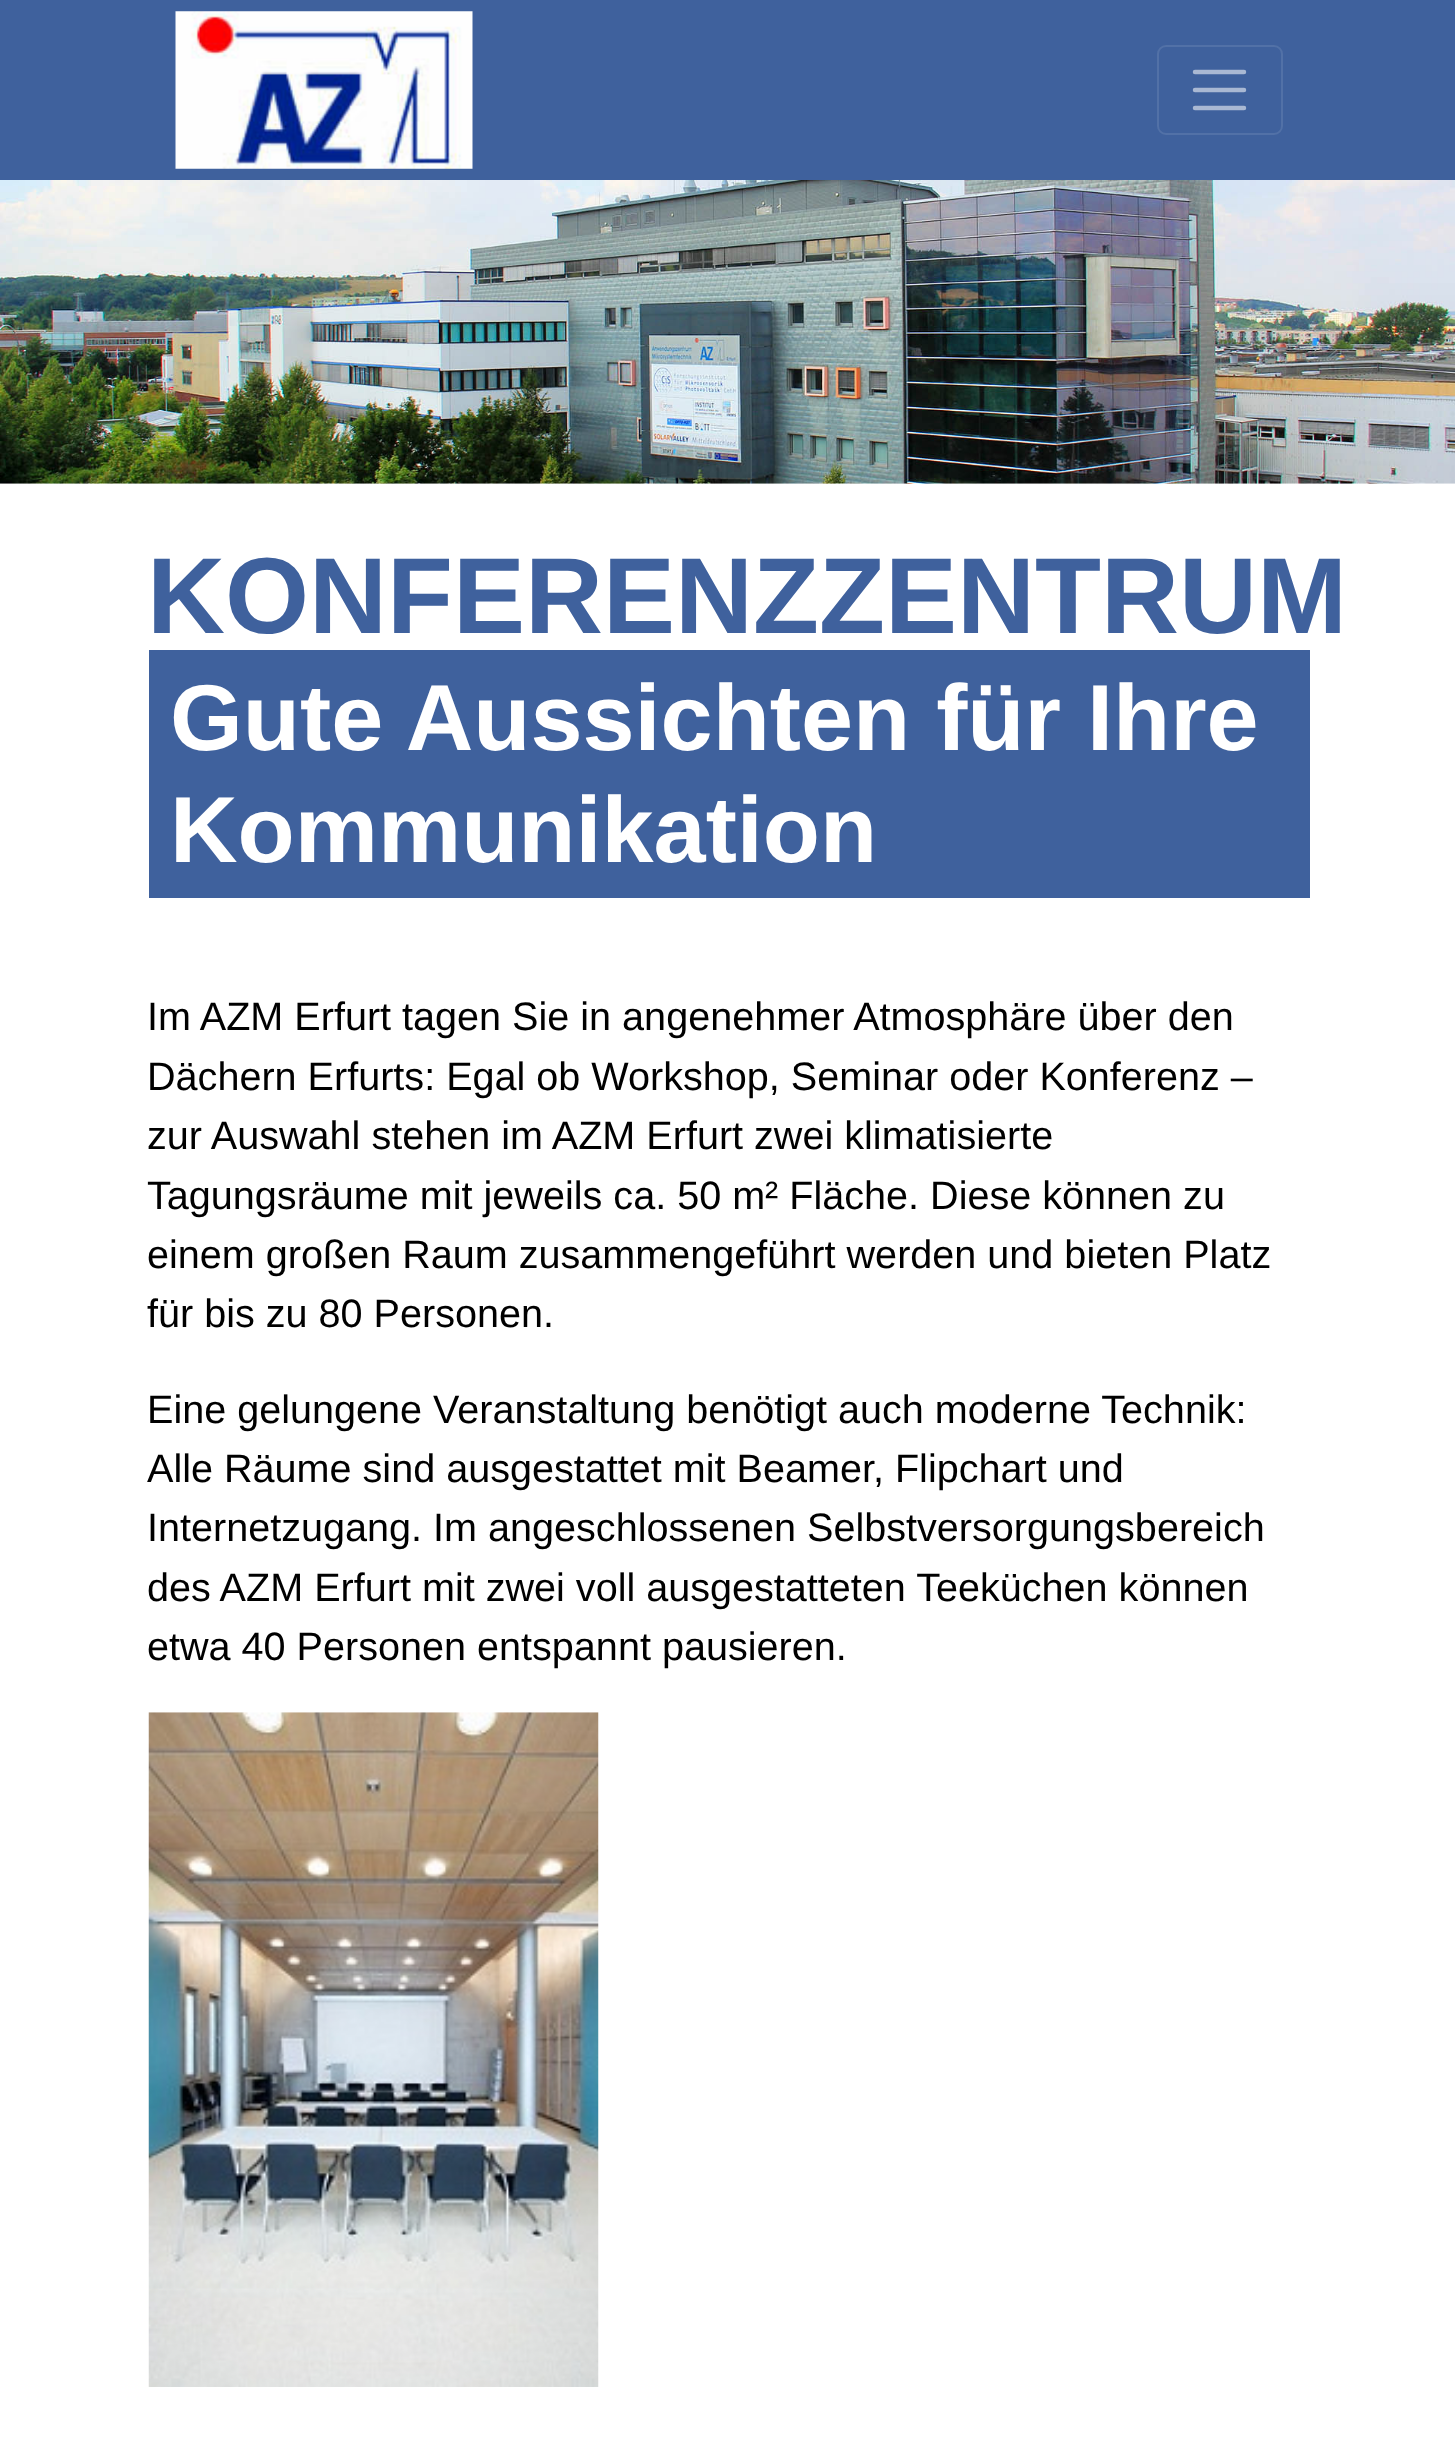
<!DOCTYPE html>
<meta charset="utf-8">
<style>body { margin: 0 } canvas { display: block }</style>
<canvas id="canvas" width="1455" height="2438"></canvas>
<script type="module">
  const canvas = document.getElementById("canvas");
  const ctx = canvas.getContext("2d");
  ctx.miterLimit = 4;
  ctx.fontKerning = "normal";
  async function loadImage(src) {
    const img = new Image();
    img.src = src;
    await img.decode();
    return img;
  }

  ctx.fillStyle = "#ffffff";
  ctx.fillRect(0, 0, 1455, 2438);
  ctx.fillStyle = "#3f619d";
  ctx.fillRect(0, 0, 1455, 180);
  ctx.drawImage(await loadImage("img1.png"), 175, 11, 298, 158);
  ctx.beginPath();
  ctx.roundRect(1158, 46, 124, 88, 8);
  ctx.strokeStyle = "#5271a7";
  ctx.lineWidth = 2;
  ctx.stroke();
  ctx.beginPath();
  ctx.moveTo(1195, 72);
  ctx.lineTo(1244, 72);
  ctx.moveTo(1195, 90);
  ctx.lineTo(1244, 90);
  ctx.moveTo(1195, 108);
  ctx.lineTo(1244, 108);
  ctx.strokeStyle = "#a9b8d3";
  ctx.lineWidth = 4.5;
  ctx.lineCap = "round";
  ctx.stroke();
  ctx.drawImage(await loadImage("img2.png"), 0, 180, 1455, 304);
  ctx.font = "bold 108px Liberation Sans";
  ctx.fillText("KONFERENZZENTRUM", 147, 633);
  ctx.fillRect(149, 650, 1161, 248);
  ctx.font = "bold 93.6px Liberation Sans";
  ctx.fillStyle = "#ffffff";
  ctx.fillText("Gute Aussichten für Ihre", 170, 750);
  ctx.fillText("Kommunikation", 170, 862);
  ctx.font = "39.6px Liberation Sans";
  ctx.fillStyle = "#000000";
  ctx.fillText("Im AZM Erfurt tagen Sie in angenehmer Atmosphäre über den", 147, 1030);
  ctx.fillText("Dächern Erfurts: Egal ob Workshop, Seminar oder Konferenz –", 147, 1090);
  ctx.fillText("zur Auswahl stehen im AZM Erfurt zwei klimatisierte", 147, 1149);
  ctx.fillText("Tagungsräume mit jeweils ca. 50 m² Fläche. Diese können zu", 147, 1209);
  ctx.fillText("einem großen Raum zusammengeführt werden und bieten Platz", 147, 1268);
  ctx.fillText("für bis zu 80 Personen.", 147, 1327);
  ctx.fillText("Eine gelungene Veranstaltung benötigt auch moderne Technik:", 147, 1423);
  ctx.fillText("Alle Räume sind ausgestattet mit Beamer, Flipchart und", 147, 1482);
  ctx.fillText("Internetzugang. Im angeschlossenen Selbstversorgungsbereich", 147, 1541);
  ctx.fillText("des AZM Erfurt mit zwei voll ausgestatteten Teeküchen können", 147, 1601);
  ctx.fillText("etwa 40 Personen entspannt pausieren.", 147, 1660);
  ctx.drawImage(await loadImage("img3.png"), 148, 1712, 451, 675);
</script>
